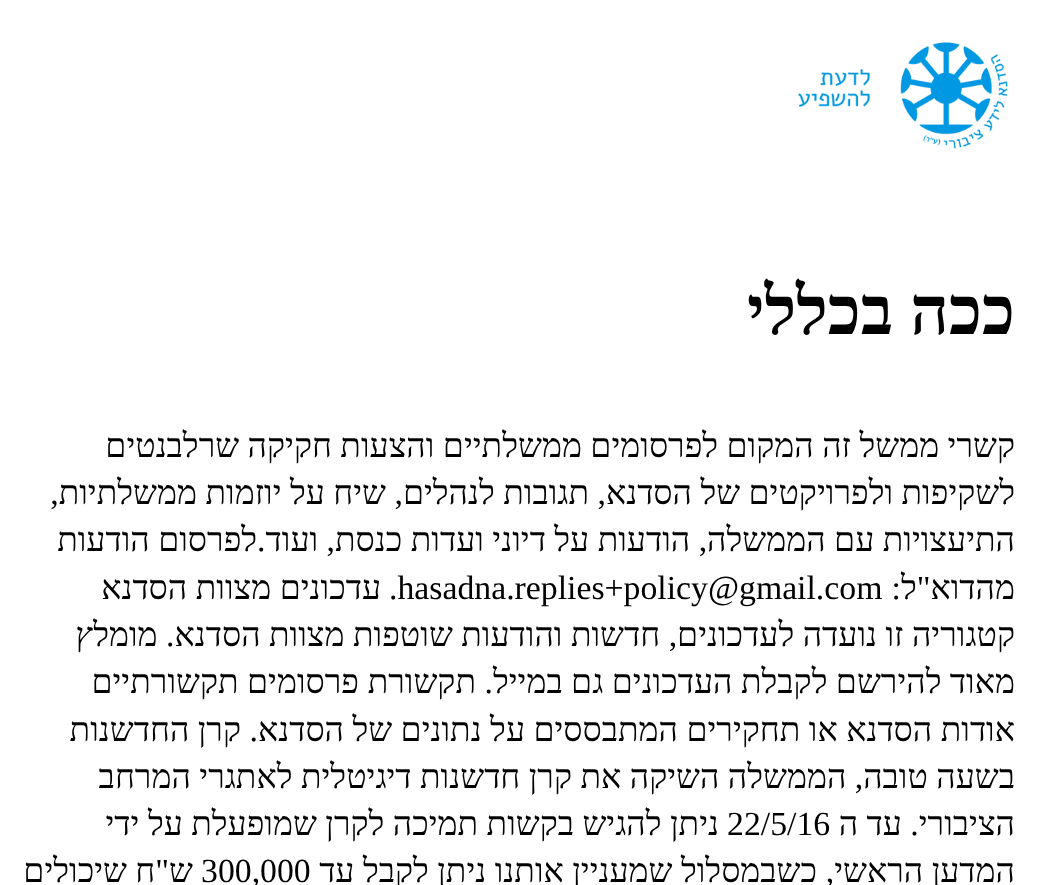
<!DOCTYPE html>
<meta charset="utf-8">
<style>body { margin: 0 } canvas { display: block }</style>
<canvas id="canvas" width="1037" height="885"></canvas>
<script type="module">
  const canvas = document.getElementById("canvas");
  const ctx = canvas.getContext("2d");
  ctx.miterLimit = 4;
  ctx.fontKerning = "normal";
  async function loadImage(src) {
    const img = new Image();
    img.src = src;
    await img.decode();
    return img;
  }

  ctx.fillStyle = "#ffffff";
  ctx.fillRect(0, 0, 1037, 885);
  ctx.drawImage(await loadImage("img1.png"), 798, 42, 210, 107);
  ctx.direction = "rtl";
  ctx.font = "bold 67.5px Liberation Serif";
  ctx.fillStyle = "#000000";
  ctx.fillText("ככה בכללי", 1015, 334);
  ctx.font = "33.75px Liberation Serif";
  ctx.fillText("קשרי ממשל", 1015, 457);
  ctx.fillText("זה המקום לפרסומים ממשלתיים והצעות חקיקה שרלבנטים", 851, 457);
  ctx.fillText("לשקיפות ולפרויקטים של הסדנא, תגובות לנהלים, שיח על יוזמות ממשלתיות,", 1015, 504);
  ctx.fillText("התיעצויות עם הממשלה, הודעות על דיוני ועדות כנסת, ועוד.לפרסום הודעות", 1015, 551);
  ctx.fillText("מהדוא\"ל:", 1015, 599);
  ctx.direction = "ltr";
  ctx.fillText(".hasadna.replies+policy@gmail.com", 389, 599);
  ctx.direction = "rtl";
  ctx.fillText("עדכונים מצוות הסדנא", 381, 599);
  ctx.fillText("קטגוריה זו נועדה לעדכונים, חדשות והודעות שוטפות מצוות הסדנא. מומלץ", 1015, 646);
  ctx.fillText("מאוד להירשם לקבלת העדכונים גם במייל.", 1015, 693);
  ctx.fillText("תקשורת", 476, 693);
  ctx.fillText("פרסומים תקשורתיים", 359, 693);
  ctx.fillText("אודות הסדנא או תחקירים המתבססים על נתונים של הסדנא.", 1015, 741);
  ctx.fillText("קרן החדשנות", 241, 741);
  ctx.fillText("בשעה טובה, הממשלה השיקה את קרן חדשנות דיגיטלית לאתגרי המרחב", 1015, 788);
  ctx.fillText("הציבורי. עד ה", 1015, 835);
  ctx.direction = "ltr";
  ctx.fillText("22/5/16", 727, 835);
  ctx.direction = "rtl";
  ctx.fillText("ניתן להגיש בקשות תמיכה לקרן שמופעלת על ידי", 719, 835);
  ctx.fillText("המדען הראשי,", 1015, 882);
  ctx.fillText("כשבמסלול שמעניין אותנו ניתן לקבל עד", 817, 882);
  ctx.direction = "ltr";
  ctx.fillText("300,000", 201, 882);
  ctx.direction = "rtl";
  ctx.fillText("ש\"ח שיכולים", 193, 882);
</script>
